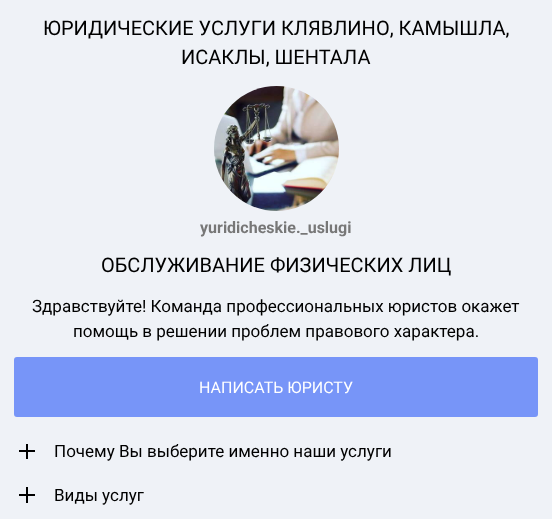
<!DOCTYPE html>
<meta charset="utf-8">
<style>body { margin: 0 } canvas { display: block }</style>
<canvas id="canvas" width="552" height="519"></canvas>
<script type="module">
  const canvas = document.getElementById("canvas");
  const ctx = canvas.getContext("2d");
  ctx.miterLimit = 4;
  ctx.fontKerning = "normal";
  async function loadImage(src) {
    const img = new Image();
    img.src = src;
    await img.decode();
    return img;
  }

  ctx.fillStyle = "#eff2f7";
  ctx.fillRect(0, 0, 552, 519);
  ctx.font = "20px Roboto";
  ctx.fillStyle = "#000000";
  ctx.fillText("ЮРИДИЧЕСКИЕ УСЛУГИ КЛЯВЛИНО, КАМЫШЛА,", 43, 35);
  ctx.fillText("ИСАКЛЫ, ШЕНТАЛА", 181, 64);
  ctx.drawImage(await loadImage("img1.png"), 214, 86, 125, 125);
  ctx.font = "bold 16px Roboto";
  ctx.fillStyle = "#777777";
  ctx.fillText("yuridicheskie._uslugi", 200, 233);
  ctx.font = "20px Roboto";
  ctx.fillStyle = "#000000";
  ctx.fillText("ОБСЛУЖИВАНИЕ ФИЗИЧЕСКИХ ЛИЦ", 101, 272);
  ctx.font = "17px Roboto";
  ctx.fillText("Здравствуйте! Команда профессиональных юристов окажет", 32, 312);
  ctx.fillText("помощь в решении проблем правового характера.", 73, 337);
  ctx.fillStyle = "#7795f8";
  ctx.beginPath();
  ctx.roundRect(15, 358, 522, 58, 2);
  ctx.fill();
  ctx.strokeStyle = "#7795f8";
  ctx.lineWidth = 2;
  ctx.stroke();
  ctx.font = "16px Roboto";
  ctx.fillStyle = "#ffffff";
  ctx.fillText("НАПИСАТЬ ЮРИСТУ", 199, 393);
  ctx.fillStyle = "#000000";
  ctx.fillRect(26, 444, 2, 15);
  ctx.fillRect(19, 450, 16, 2);
  ctx.font = "17px Roboto";
  ctx.fillText("Почему Вы выберите именно наши услуги", 54, 457);
  ctx.fillRect(26, 487, 2, 16);
  ctx.fillRect(19, 494, 16, 2);
  ctx.fillText("Виды услуг", 54, 501);
</script>
